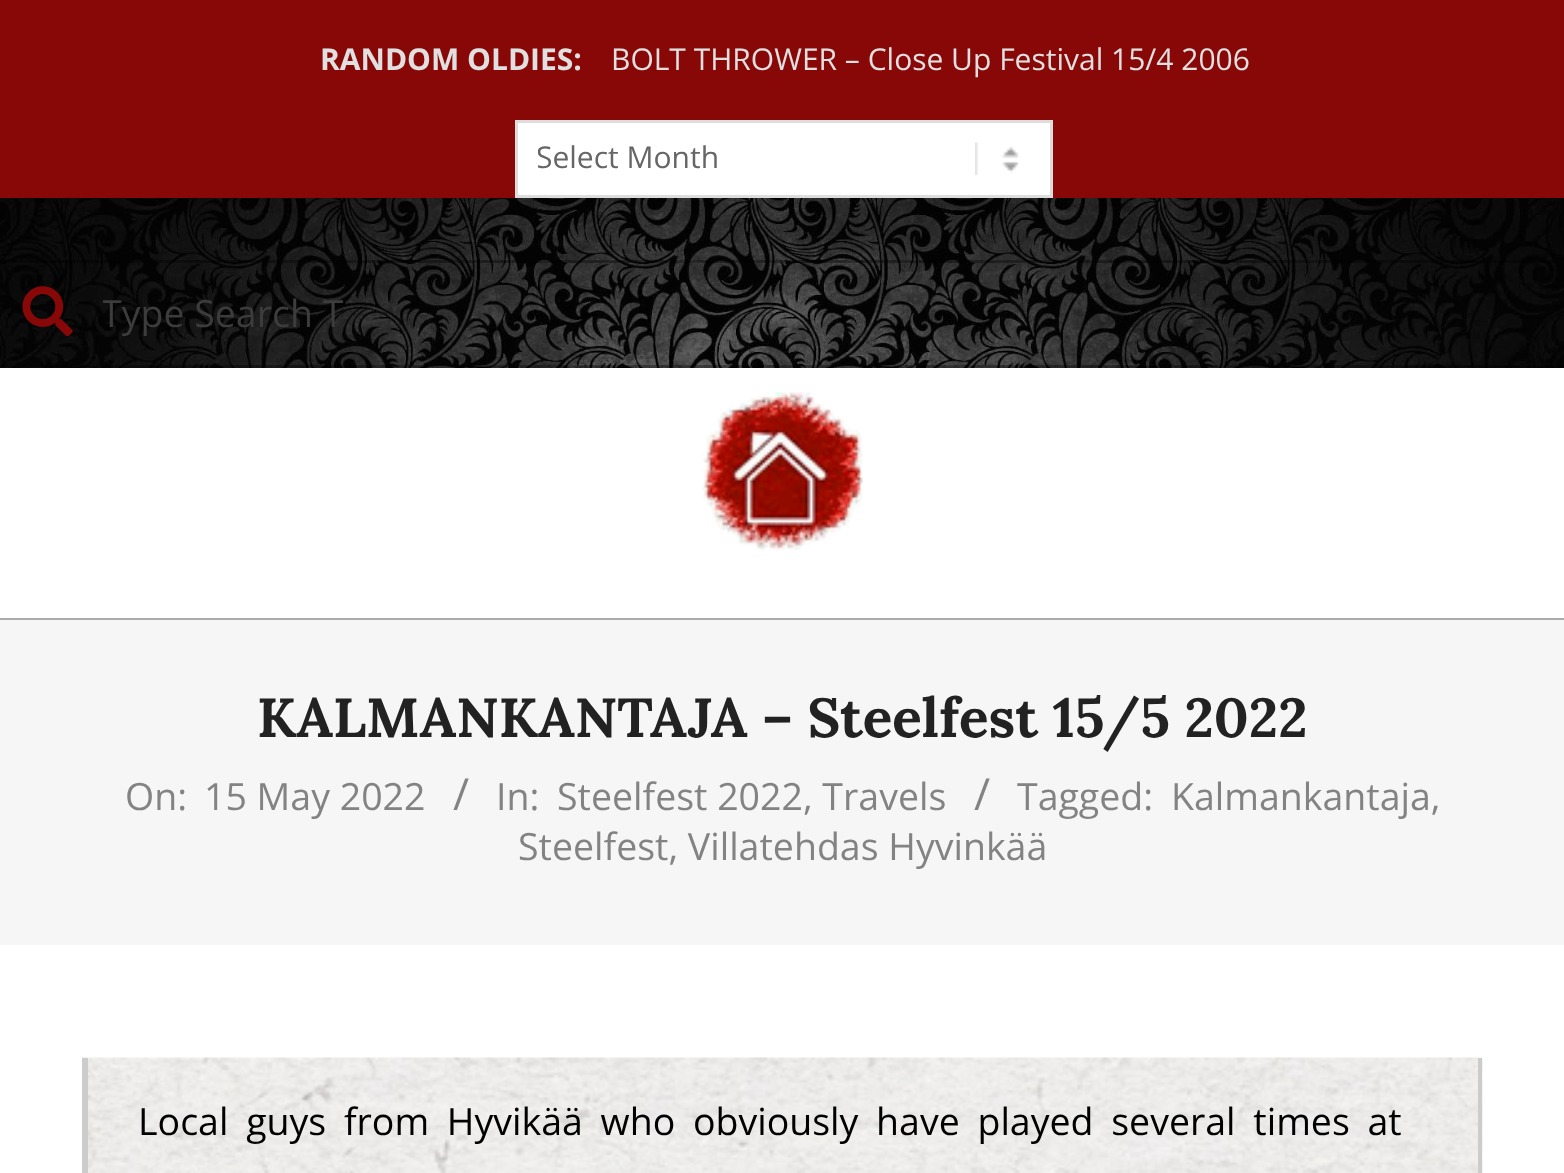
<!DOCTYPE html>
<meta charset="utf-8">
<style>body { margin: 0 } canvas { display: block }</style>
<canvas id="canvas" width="1564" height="1173"></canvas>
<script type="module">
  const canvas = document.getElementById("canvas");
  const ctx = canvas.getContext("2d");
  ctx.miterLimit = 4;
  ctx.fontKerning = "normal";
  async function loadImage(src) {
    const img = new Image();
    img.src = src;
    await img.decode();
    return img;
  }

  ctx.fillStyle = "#ffffff";
  ctx.fillRect(0, 0, 1564, 1173);
  ctx.drawImage(await loadImage("img1.png"), 0, 198, 1564, 170);
  ctx.fillStyle = "#880808";
  ctx.fillRect(0, 0, 1564, 198);
  ctx.font = "bold 30px Open Sans";
  ctx.fillStyle = "#e0e0e0";
  ctx.fillText("RANDOM OLDIES:", 320, 70);
  ctx.font = "30px Open Sans";
  ctx.fillText("BOLT THROWER – Close Up Festival 15/4 2006", 611, 70);
  ctx.fillStyle = "#ffffff";
  ctx.fillRect(518, 123, 532, 72);
  ctx.drawImage(await loadImage("img2.png"), 975, 142, 44, 33);
  ctx.strokeStyle = "#dddddd";
  ctx.lineWidth = 3;
  ctx.strokeRect(516.5, 121.5, 535, 75);
  ctx.save();
  ctx.beginPath();
  ctx.rect(538, 138, 492, 42);
  ctx.clip();
  ctx.fillStyle = "#666666";
  ctx.fillText("Select Month", 536, 168);
  ctx.restore();
  ctx.fillStyle = "rgba(0, 0, 0, 0.33)";
  ctx.fillRect(0, 365, 1564, 3);
  ctx.fillRect(13, 260, 1541, 3);
  ctx.drawImage(await loadImage("img3.png"), 22, 286, 51, 51);
  ctx.save();
  ctx.beginPath();
  ctx.rect(103, 288, 1417, 50);
  ctx.clip();
  ctx.font = "37.5px Open Sans";
  ctx.fillStyle = "#3c3c3c";
  ctx.fillText("Type Search T", 101, 327);
  ctx.restore();
  ctx.fillRect(0, 618, 1564, 2);
  ctx.drawImage(await loadImage("img4.png"), 702, 392, 161, 159);
  ctx.fillStyle = "#f6f6f6";
  ctx.fillRect(0, 620, 1564, 325);
  ctx.font = "bold 55px Lora";
  ctx.fillStyle = "#222222";
  ctx.fillText("KALMANKANTAJA – Steelfest 15/5 2022", 257, 737);
  ctx.font = "37.5px Open Sans";
  ctx.fillStyle = "#838383";
  ctx.fillText("On:", 125, 810);
  ctx.fillText("15 May 2022", 204, 810);
  ctx.font = "44px Open Sans";
  ctx.fillText("/", 453, 810);
  ctx.font = "37.5px Open Sans";
  ctx.fillText("In:", 496, 810);
  ctx.fillText("Steelfest 2022, Travels", 557, 810);
  ctx.font = "44px Open Sans";
  ctx.fillText("/", 974, 810);
  ctx.font = "37.5px Open Sans";
  ctx.fillText("Tagged:", 1017, 810);
  ctx.fillText("Kalmankantaja,", 1171, 810);
  ctx.fillText("Steelfest, Villatehdas Hyvinkää", 518, 860);
  ctx.drawImage(await loadImage("img5.png"), 82, 1057, 1401, 116);
  ctx.fillStyle = "#cccccc";
  ctx.beginPath();
  ctx.moveTo(1482, 1058);
  ctx.lineTo(1482, 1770);
  ctx.lineTo(1478, 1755);
  ctx.lineTo(1478, 1058);
  ctx.closePath();
  ctx.fill();
  ctx.beginPath();
  ctx.moveTo(82, 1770);
  ctx.lineTo(82, 1058);
  ctx.lineTo(88, 1058);
  ctx.lineTo(88, 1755);
  ctx.closePath();
  ctx.fill();
  ctx.wordSpacing = "8px";
  ctx.fillStyle = "#000000";
  ctx.fillText("Local guys from Hyvikää who obviously have played several times at", 138, 1135);
</script>
